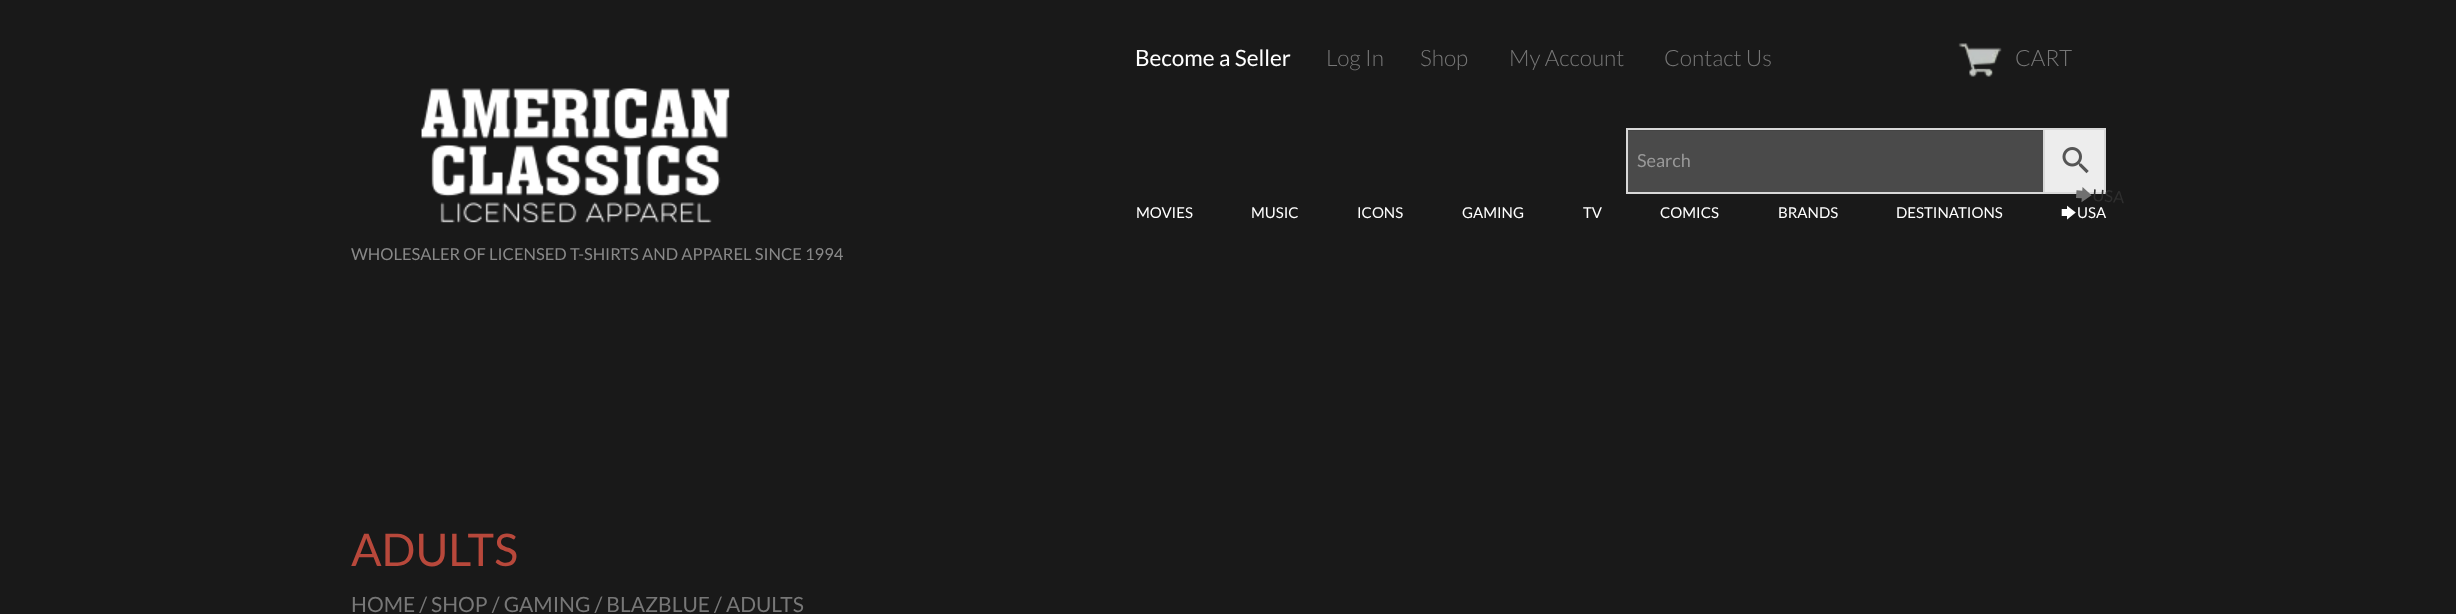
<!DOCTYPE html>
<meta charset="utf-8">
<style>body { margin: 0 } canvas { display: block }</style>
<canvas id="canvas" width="2456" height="614"></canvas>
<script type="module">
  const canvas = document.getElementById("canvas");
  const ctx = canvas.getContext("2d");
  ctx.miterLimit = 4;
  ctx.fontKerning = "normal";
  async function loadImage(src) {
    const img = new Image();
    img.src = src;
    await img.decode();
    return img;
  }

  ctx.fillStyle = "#191919";
  ctx.fillRect(0, 0, 2456, 614);
  ctx.font = "22.5px Lato";
  ctx.fillStyle = "#ffffff";
  ctx.fillText("Become a Seller", 1135, 66);
  ctx.font = "300 22.5px Lato";
  ctx.fillStyle = "#777777";
  ctx.fillText("Log In", 1326, 66);
  ctx.fillText("Shop", 1420, 66);
  ctx.fillText("My Account", 1509, 66);
  ctx.fillText("Contact Us", 1664, 66);
  ctx.drawImage(await loadImage("img1.png"), 1958, 43, 44, 34);
  ctx.fillText("CART", 2015, 66);
  ctx.fillStyle = "#4a4a4a";
  ctx.fillRect(1628, 131, 415, 61);
  ctx.fillStyle = "#444444";
  ctx.fillRect(1628, 130, 415, 1);
  ctx.fillStyle = "#ededed";
  ctx.beginPath();
  ctx.rect(2044, 129, 61, 64);
  ctx.fill();
  ctx.strokeStyle = "#d8d8d8";
  ctx.lineWidth = 2;
  ctx.stroke();
  ctx.strokeRect(1627, 129, 417, 64);
  ctx.font = "18px Lato";
  ctx.fillStyle = "#999999";
  ctx.fillText("Search", 1637, 167);
  ctx.drawImage(await loadImage("img2.png"), 2062, 147, 27, 27);
  ctx.font = "15px Lato";
  ctx.fillStyle = "#ffffff";
  ctx.fillText("MOVIES", 1136, 218);
  ctx.fillText("MUSIC", 1251, 218);
  ctx.fillText("ICONS", 1357, 218);
  ctx.fillText("GAMING", 1462, 218);
  ctx.fillText("TV", 1583, 218);
  ctx.fillText("COMICS", 1660, 218);
  ctx.fillText("BRANDS", 1778, 218);
  ctx.fillText("DESTINATIONS", 1896, 218);
  ctx.font = "16.5px 'Noto Sans Symbols 2'";
  ctx.fillStyle = "#707070";
  ctx.save();
  ctx.translate(2075, 200);
  ctx.rotate(4 * Math.PI / 180);
  ctx.fillText("🡆", 0, 0);
  ctx.restore();
  ctx.font = "16.5px Lato";
  ctx.fillStyle = "#2f2f2f";
  ctx.save();
  ctx.translate(2092, 201);
  ctx.rotate(4 * Math.PI / 180);
  ctx.fillText("USA", 0, 0);
  ctx.restore();
  ctx.font = "15px 'Noto Sans Symbols 2'";
  ctx.fillStyle = "#ffffff";
  ctx.fillText("🡆", 2061, 218);
  ctx.font = "15px Lato";
  ctx.fillText("USA", 2077, 218);
  ctx.drawImage(await loadImage("img3.png"), 421, 88, 309, 135);
  ctx.font = "16.5px Lato";
  ctx.fillStyle = "#888888";
  ctx.fillText("WHOLESALER OF LICENSED T-SHIRTS AND APPAREL SINCE 1994", 351, 260);
  ctx.font = "45px Lato";
  ctx.fillStyle = "#b8483b";
  ctx.fillText("ADULTS", 351, 566);
  ctx.font = "21px Lato";
  ctx.fillStyle = "#777777";
  ctx.fillText("HOME / SHOP / GAMING / BLAZBLUE / ADULTS", 351, 612);
</script>
